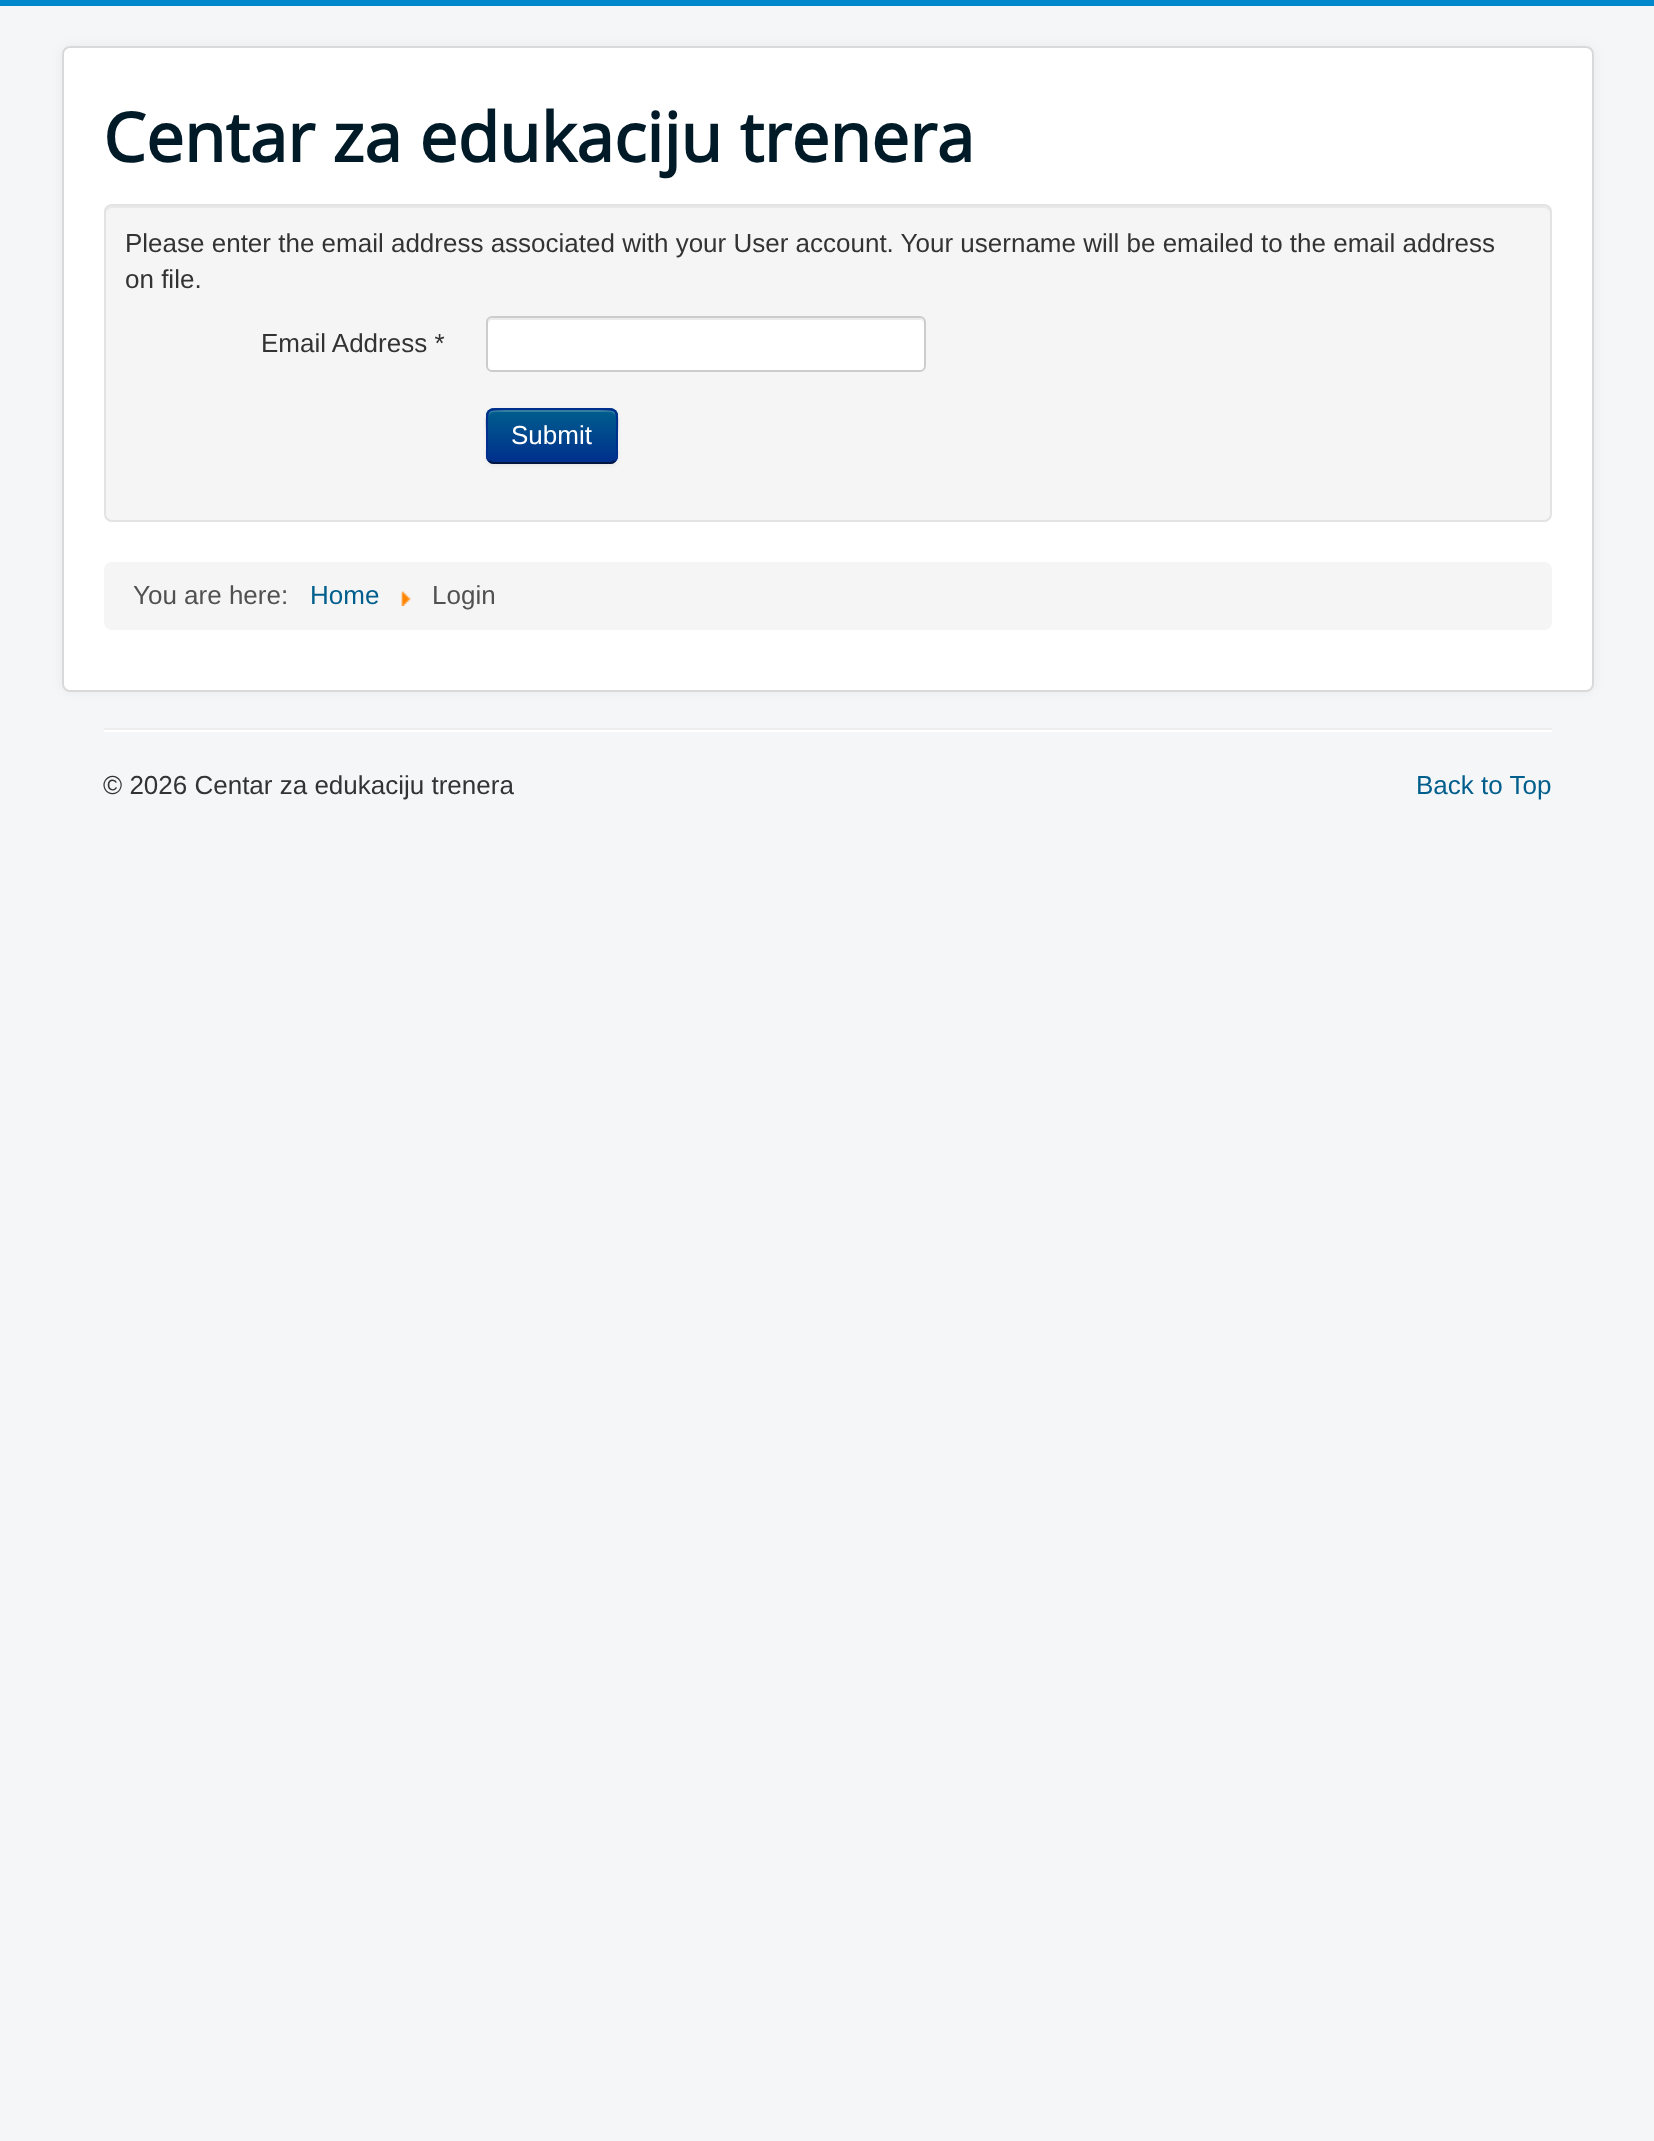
<!DOCTYPE html>
<meta charset="utf-8">
<style>body { margin: 0 } canvas { display: block }</style>
<canvas id="canvas" width="1654" height="2141"></canvas>
<script type="module">
  const canvas = document.getElementById("canvas");
  const ctx = canvas.getContext("2d");
  ctx.miterLimit = 4;
  ctx.fontKerning = "normal";
  async function loadImage(src) {
    const img = new Image();
    img.src = src;
    await img.decode();
    return img;
  }
  let gradient;

  ctx.fillStyle = "#f4f6f7";
  ctx.fillRect(0, 0, 1654, 2141);
  ctx.fillStyle = "#0088cc";
  ctx.fillRect(0, 0, 1654, 6);
  ctx.fillStyle = "rgba(0, 0, 0, 0.05)";
  ctx.filter = "blur(6px)";
  ctx.beginPath();
  ctx.roundRect(62, 46, 1532, 646, 8);
  ctx.fill();
  ctx.filter = "none";
  ctx.fillStyle = "#ffffff";
  ctx.beginPath();
  ctx.roundRect(62, 46, 1532, 646, 8);
  ctx.fill();
  ctx.beginPath();
  ctx.roundRect(63, 47, 1530, 644, 7);
  ctx.strokeStyle = "rgba(0, 0, 0, 0.15)";
  ctx.lineWidth = 2;
  ctx.stroke();
  ctx.font = "bold 67.75px Open Sans";
  ctx.fillStyle = "#001a27";
  ctx.fillText("Centar za edukaciju trenera", 103, 162);
  ctx.fillStyle = "#f5f5f5";
  ctx.beginPath();
  ctx.roundRect(104, 204, 1448, 318, 8);
  ctx.fill();
  ctx.fillStyle = "#e9e9e9";
  ctx.beginPath();
  ctx.moveTo(112, 208);
  ctx.lineTo(1544, 208);
  ctx.bezierCurveTo(1547, 208, 1550, 211, 1550, 214);
  ctx.bezierCurveTo(1550, 210, 1549, 206, 1544, 206);
  ctx.lineTo(112, 206);
  ctx.bezierCurveTo(107, 206, 106, 210, 106, 214);
  ctx.bezierCurveTo(106, 211, 109, 208, 112, 208);
  ctx.closePath();
  ctx.fill();
  ctx.beginPath();
  ctx.roundRect(105, 205, 1446, 316, 7);
  ctx.strokeStyle = "#e3e3e3";
  ctx.stroke();
  ctx.font = "26px Liberation Sans";
  ctx.fillStyle = "#333333";
  ctx.fillText("Please enter the email address associated with your User account. Your username will be emailed to the email address", 125, 252);
  ctx.fillText("on file.", 125, 288);
  ctx.fillText("Email Address *", 261, 352);
  ctx.fillStyle = "#ffffff";
  ctx.beginPath();
  ctx.roundRect(486, 316, 440, 56, 6);
  ctx.fill();
  ctx.fillStyle = "#ececec";
  ctx.beginPath();
  ctx.moveTo(492, 320);
  ctx.lineTo(920, 320);
  ctx.bezierCurveTo(922, 320, 924, 322, 924, 324);
  ctx.lineTo(924, 322);
  ctx.bezierCurveTo(924, 320, 922, 318, 920, 318);
  ctx.lineTo(492, 318);
  ctx.bezierCurveTo(490, 318, 488, 320, 488, 322);
  ctx.lineTo(488, 324);
  ctx.bezierCurveTo(488, 322, 490, 320, 492, 320);
  ctx.closePath();
  ctx.fill();
  ctx.beginPath();
  ctx.roundRect(487, 317, 438, 54, 5);
  ctx.strokeStyle = "#cccccc";
  ctx.stroke();
  ctx.fillStyle = "rgba(0, 0, 0, 0.05)";
  ctx.filter = "blur(2px)";
  ctx.beginPath();
  ctx.roundRect(486, 410, 132, 56, 8);
  ctx.fill();
  ctx.filter = "none";
  ctx.fillStyle = "#004b8d";
  ctx.beginPath();
  ctx.roundRect(486, 408, 132, 56, 8);
  ctx.fill();
  ctx.save();
  ctx.beginPath();
  ctx.roundRect(486, 408, 132, 56, 8);
  ctx.clip();
  gradient = ctx.createLinearGradient(552, 410, 552, 462);
  gradient.addColorStop(0, "#005e8d");
  gradient.addColorStop(1, "#002f8d");
  ctx.fillStyle = gradient;
  ctx.fillRect(486, 410, 132, 52);
  ctx.restore();
  ctx.fillStyle = "rgba(255, 255, 255, 0.2)";
  ctx.beginPath();
  ctx.moveTo(494, 412);
  ctx.lineTo(610, 412);
  ctx.bezierCurveTo(613, 412, 616, 415, 616, 418);
  ctx.lineTo(616, 416);
  ctx.bezierCurveTo(616, 413, 613, 410, 610, 410);
  ctx.lineTo(494, 410);
  ctx.bezierCurveTo(491, 410, 488, 413, 488, 416);
  ctx.lineTo(488, 418);
  ctx.bezierCurveTo(488, 415, 491, 412, 494, 412);
  ctx.closePath();
  ctx.fill();
  ctx.beginPath();
  ctx.moveTo(615, 461);
  ctx.bezierCurveTo(613.5, 462.5, 612, 463, 610, 463);
  ctx.lineTo(494, 463);
  ctx.bezierCurveTo(492, 463, 490.5, 462.5, 489, 461);
  ctx.strokeStyle = "#001641";
  ctx.stroke();
  ctx.beginPath();
  ctx.moveTo(489, 461);
  ctx.bezierCurveTo(486, 458, 487, 453, 487, 449.5);
  ctx.lineTo(487, 436);
  ctx.bezierCurveTo(487, 406, 483, 409, 513.5, 409);
  ctx.lineTo(590.5, 409);
  ctx.bezierCurveTo(621, 409, 617, 406, 617, 436);
  ctx.lineTo(617, 449.5);
  ctx.bezierCurveTo(617, 453, 618, 458, 615, 461);
  ctx.strokeStyle = "#002f8d";
  ctx.stroke();
  ctx.fillStyle = "#ffffff";
  ctx.fillText("Submit", 511, 444);
  ctx.fillStyle = "#f5f5f5";
  ctx.beginPath();
  ctx.roundRect(104, 562, 1448, 68, 8);
  ctx.fill();
  ctx.fillStyle = "#515151";
  ctx.fillText("You are here:", 133, 604);
  ctx.fillStyle = "#005e8d";
  ctx.fillText("Home", 310, 604);
  ctx.drawImage(await loadImage("img1.png"), 401, 591, 10, 15);
  ctx.fillStyle = "#515151";
  ctx.fillText("Login", 432, 604);
  ctx.fillStyle = "#eeeeee";
  ctx.fillRect(104, 728, 1448, 2);
  ctx.fillStyle = "#ffffff";
  ctx.fillRect(104, 730, 1448, 2);
  ctx.fillStyle = "#333333";
  ctx.fillText("© 2026 Centar za edukaciju trenera", 103, 794);
  ctx.fillStyle = "#005e8d";
  ctx.fillText("Back to Top", 1416, 794);
</script>
